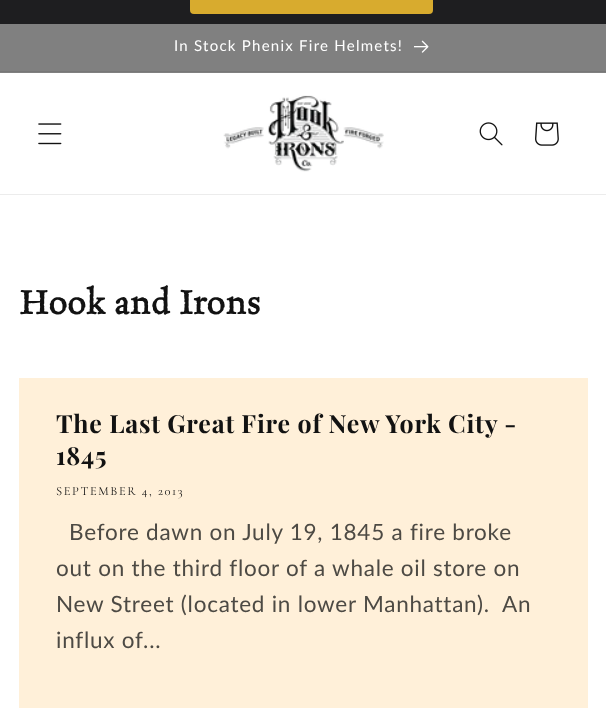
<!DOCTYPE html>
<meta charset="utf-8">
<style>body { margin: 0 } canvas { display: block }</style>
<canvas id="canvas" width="606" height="708"></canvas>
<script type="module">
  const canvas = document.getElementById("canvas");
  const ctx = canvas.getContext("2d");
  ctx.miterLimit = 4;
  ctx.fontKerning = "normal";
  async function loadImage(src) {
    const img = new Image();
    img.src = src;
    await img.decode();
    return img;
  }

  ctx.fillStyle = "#ffffff";
  ctx.fillRect(0, 0, 606, 708);
  ctx.fillStyle = "#1e1e20";
  ctx.fillRect(0, 0, 606, 24);
  ctx.fillStyle = "#d8ab2e";
  ctx.beginPath();
  ctx.roundRect(190, -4, 243, 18, 4);
  ctx.fill();
  ctx.fillStyle = "#808080";
  ctx.fillRect(0, 24, 606, 49);
  ctx.fillStyle = "#777777";
  ctx.fillRect(0, 71, 606, 1);
  ctx.letterSpacing = "1.25px";
  ctx.font = "15px Lato";
  ctx.fillStyle = "#ffffff";
  ctx.fillText("In Stock Phenix Fire Helmets!", 174, 51);
  ctx.drawImage(await loadImage("img1.png"), 414, 40, 15, 13);
  ctx.fillStyle = "#ececec";
  ctx.fillRect(0, 194, 606, 1);
  ctx.drawImage(await loadImage("img2.png"), 38, 123, 24, 22);
  ctx.drawImage(await loadImage("img3.png"), 223, 95, 161, 77);
  ctx.drawImage(await loadImage("img4.png"), 479, 122, 24, 24);
  ctx.drawImage(await loadImage("img5.png"), 535, 122, 24, 24);
  ctx.letterSpacing = "0.75px";
  ctx.font = "bold 37.5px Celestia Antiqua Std";
  ctx.fillStyle = "#121212";
  ctx.fillText("Hook and Irons", 19, 314);
  ctx.fillStyle = "#fff0d9";
  ctx.fillRect(19, 378, 569, 330);
  ctx.font = "bold 25px Playfair Display";
  ctx.fillStyle = "#121212";
  ctx.fillText("The Last Great Fire of New York City -", 56, 433);
  ctx.fillText("1845", 56, 465);
  ctx.letterSpacing = "1.6px";
  ctx.font = "12.5px Cormorant Garamond";
  ctx.fillText("SEPTEMBER 4, 2013", 56, 495);
  ctx.letterSpacing = "0.75px";
  ctx.font = "22.5px Lato";
  ctx.fillStyle = "#4d4a44";
  ctx.fillText("Before dawn on July 19, 1845 a fire broke", 69, 540);
  ctx.fillText("out on the third floor of a whale oil store on", 56, 576);
  ctx.fillText("New Street (located in lower Manhattan).  An", 56, 612);
  ctx.fillText("influx of...", 56, 648);
</script>
